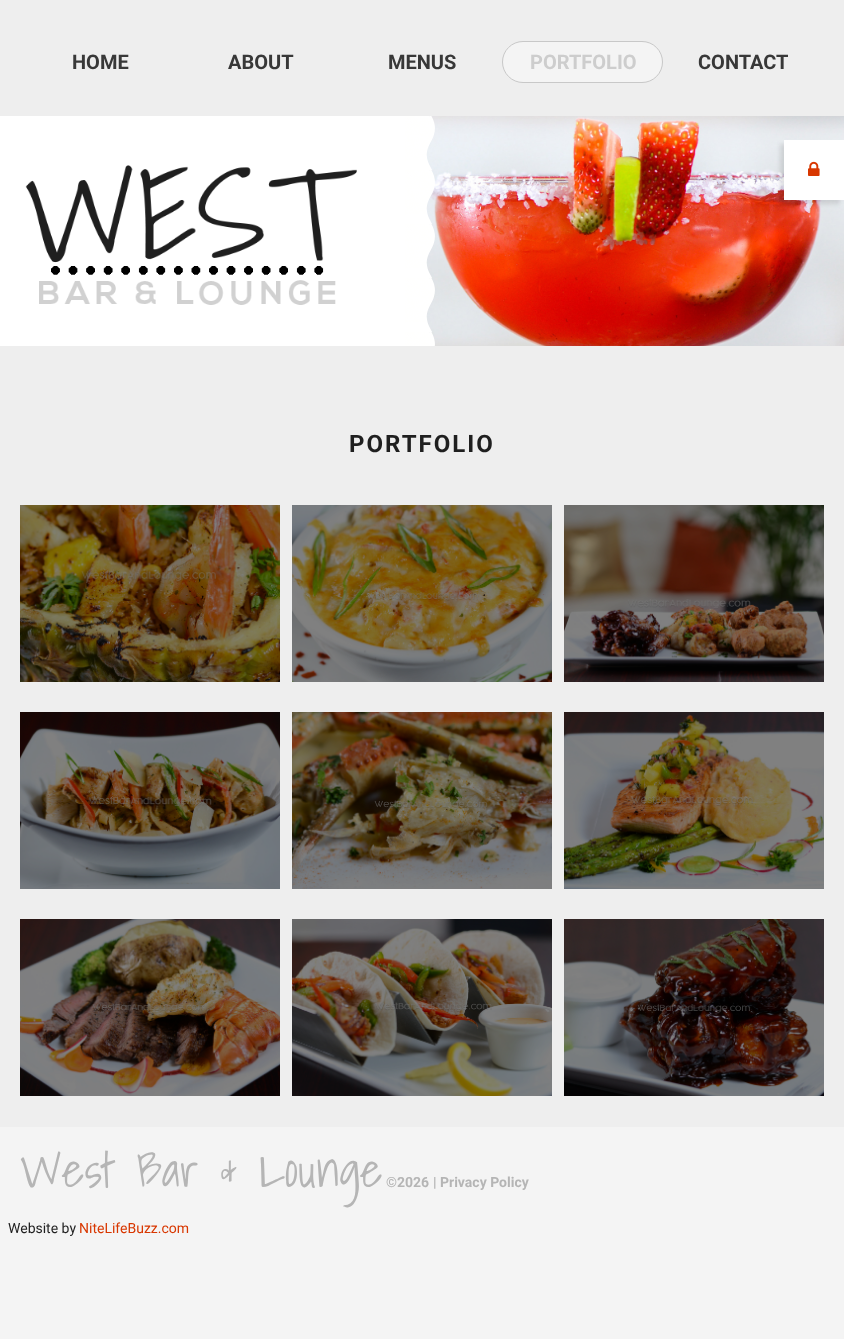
<!DOCTYPE html>
<meta charset="utf-8">
<style>body { margin: 0 } canvas { display: block }</style>
<canvas id="canvas" width="844" height="1339"></canvas>
<script type="module">
  const canvas = document.getElementById("canvas");
  const ctx = canvas.getContext("2d");
  ctx.miterLimit = 4;
  ctx.fontKerning = "normal";
  async function loadImage(src) {
    const img = new Image();
    img.src = src;
    await img.decode();
    return img;
  }

  ctx.fillStyle = "#f4f4f4";
  ctx.fillRect(0, 0, 844, 1339);
  ctx.fillStyle = "#eeeeee";
  ctx.fillRect(0, 0, 844, 1127);
  ctx.font = "bold 20px Roboto";
  ctx.fillStyle = "#383838";
  ctx.fillText("HOME", 72, 69);
  ctx.fillText("ABOUT", 228, 69);
  ctx.fillText("MENUS", 388, 69);
  ctx.fillStyle = "#f4f4f4";
  ctx.beginPath();
  ctx.roundRect(502.5, 41.5, 160, 41, 20.5);
  ctx.fill();
  ctx.strokeStyle = "#c8c8c8";
  ctx.stroke();
  ctx.fillStyle = "#cdcdcd";
  ctx.fillText("PORTFOLIO", 530, 69);
  ctx.fillStyle = "#383838";
  ctx.fillText("CONTACT", 698, 69);
  ctx.drawImage(await loadImage("img1.png"), 426, 116, 418, 230);
  ctx.fillStyle = "#ffffff";
  ctx.fillRect(0, 116, 405, 230);
  ctx.drawImage(await loadImage("img2.png"), 405, 116, 30, 230);
  ctx.drawImage(await loadImage("img3.png"), 25, 165, 332, 140);
  ctx.letterSpacing = "2px";
  ctx.font = "bold 24px Roboto";
  ctx.fillStyle = "#1f1f1f";
  ctx.fillText("PORTFOLIO", 349, 452);
  ctx.drawImage(await loadImage("img4.png"), 20, 505, 260, 177);
  ctx.drawImage(await loadImage("img5.png"), 292, 505, 260, 177);
  ctx.drawImage(await loadImage("img6.png"), 564, 505, 260, 177);
  ctx.drawImage(await loadImage("img7.png"), 20, 712, 260, 177);
  ctx.drawImage(await loadImage("img8.png"), 292, 712, 260, 177);
  ctx.drawImage(await loadImage("img9.png"), 564, 712, 260, 177);
  ctx.drawImage(await loadImage("img10.png"), 20, 919, 260, 177);
  ctx.drawImage(await loadImage("img11.png"), 292, 919, 260, 177);
  ctx.drawImage(await loadImage("img12.png"), 564, 919, 260, 177);
  ctx.fillStyle = "rgba(0, 0, 0, 0.1)";
  ctx.filter = "blur(2px)";
  ctx.beginPath();
  ctx.rect(780, 144, 60, 60);
  ctx.fill();
  ctx.filter = "none";
  ctx.fillStyle = "#ffffff";
  ctx.fillRect(784, 140, 60, 60);
  ctx.drawImage(await loadImage("img13.png"), 808, 161, 12, 15);
  ctx.letterSpacing = "0px";
  ctx.font = "300 48px Shadows Into Light";
  ctx.fillStyle = "#b5b5b5";
  ctx.fillText("West Bar & Lounge", 20, 1187);
  ctx.font = "bold 14px Roboto";
  ctx.fillText("©2026", 386, 1187);
  ctx.fillText("| Privacy Policy", 433, 1187);
  ctx.font = "14px Roboto";
  ctx.fillStyle = "#1f1f1f";
  ctx.fillText("Website by", 8, 1233);
  ctx.fillStyle = "#d83700";
  ctx.fillText("NiteLifeBuzz.com", 79, 1233);
</script>
